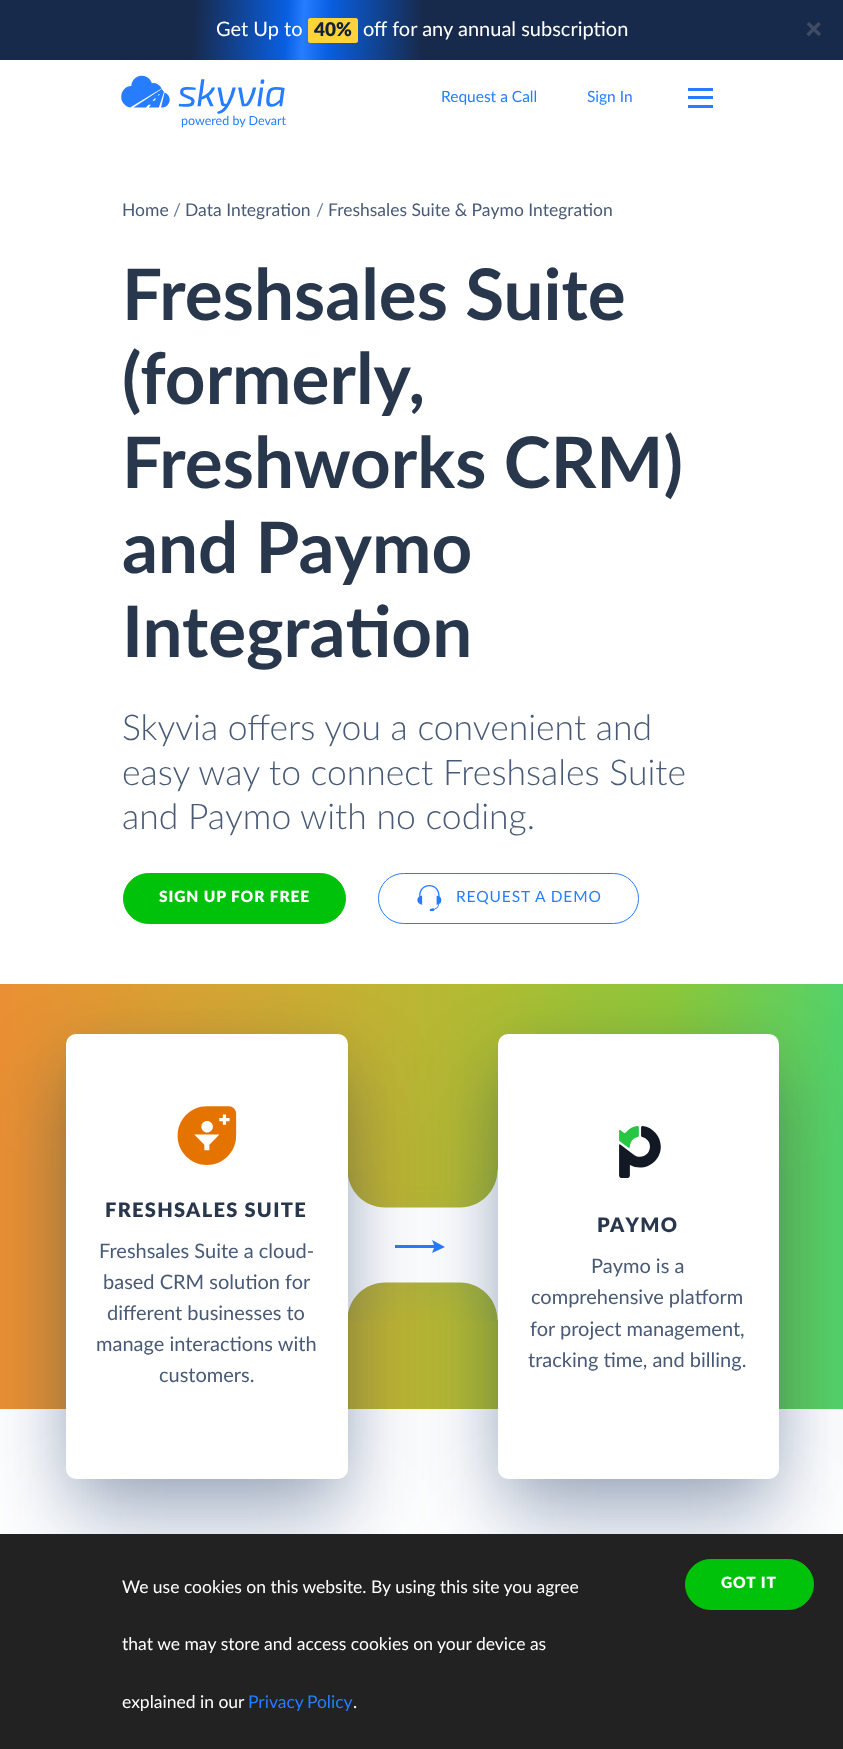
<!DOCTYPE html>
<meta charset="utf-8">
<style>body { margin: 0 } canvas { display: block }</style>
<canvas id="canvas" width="843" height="1749"></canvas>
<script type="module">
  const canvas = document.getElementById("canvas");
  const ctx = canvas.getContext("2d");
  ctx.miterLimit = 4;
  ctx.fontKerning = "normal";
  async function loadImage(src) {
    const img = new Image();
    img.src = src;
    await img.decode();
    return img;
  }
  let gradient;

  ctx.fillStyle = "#ffffff";
  ctx.fillRect(0, 0, 843, 1749);
  gradient = ctx.createLinearGradient(-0.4, 7.9, 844, 52);
  gradient.addColorStop(0.23, "#182a4c");
  gradient.addColorStop(0.34, "#095fe1");
  gradient.addColorStop(0.36, "#277dff");
  gradient.addColorStop(0.39, "#095fe1");
  gradient.addColorStop(0.5, "#182a4c");
  ctx.fillStyle = gradient;
  ctx.fillRect(0, 0, 843, 60);
  ctx.font = "20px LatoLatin";
  ctx.fillStyle = "#ffffff";
  ctx.fillText("Get Up to", 216, 36);
  ctx.fillStyle = "#ffd339";
  ctx.beginPath();
  ctx.roundRect(308, 18, 50, 25, 2.5);
  ctx.fill();
  ctx.font = "900 19px LatoLatin";
  ctx.fillStyle = "#0f2039";
  ctx.fillText("40%", 314, 36);
  ctx.font = "20px LatoLatin";
  ctx.fillStyle = "#ffffff";
  ctx.fillText("off for any annual subscription", 363, 36);
  ctx.font = "900 30px LatoLatin";
  ctx.fillStyle = "#404c64";
  ctx.fillText("×", 805, 39);
  ctx.font = "15.5px LatoLatin";
  ctx.fillStyle = "#277dff";
  ctx.fillText("Request a Call", 441, 102);
  ctx.fillText("Sign In", 587, 102);
  ctx.fillRect(688, 96, 25, 3);
  ctx.fillRect(688, 88, 25, 3);
  ctx.fillRect(688, 105, 25, 3);
  ctx.drawImage(await loadImage("img1.png"), 121, 75, 164, 39);
  ctx.font = "12.5px LatoLatin";
  ctx.fillText("powered by Devart", 181, 125);
  ctx.font = "17.5px LatoLatin";
  ctx.fillStyle = "#485a76";
  ctx.fillText("Home", 122, 216);
  ctx.fillStyle = "#667892";
  ctx.fillText("/", 173, 216);
  ctx.fillStyle = "#485a76";
  ctx.fillText("Data Integration", 185, 216);
  ctx.fillStyle = "#667892";
  ctx.fillText("/", 316, 216);
  ctx.fillStyle = "#485a76";
  ctx.fillText("Freshsales Suite & Paymo Integration", 328, 216);
  ctx.font = "bold 71px LatoLatin";
  ctx.fillStyle = "#29374d";
  ctx.fillText("Freshsales Suite", 122, 320);
  ctx.fillText("(formerly,", 122, 404);
  ctx.fillText("Freshworks CRM)", 122, 488);
  ctx.fillText("and Paymo", 122, 573);
  ctx.fillText("Integration", 122, 657);
  ctx.font = "300 35.5px LatoLatin";
  ctx.fillStyle = "#485a76";
  ctx.fillText("Skyvia offers you a convenient and", 122, 740);
  ctx.fillText("easy way to connect Freshsales Suite", 122, 785);
  ctx.fillText("and Paymo with no coding.", 122, 829);
  ctx.fillStyle = "#00c20b";
  ctx.beginPath();
  ctx.roundRect(123.5, 873.5, 222, 50, 25);
  ctx.fill();
  ctx.strokeStyle = "#00c20b";
  ctx.stroke();
  ctx.letterSpacing = "0.9px";
  ctx.font = "900 15.5px LatoLatin";
  ctx.fillStyle = "#ffffff";
  ctx.fillText("SIGN UP FOR FREE", 159, 902);
  ctx.beginPath();
  ctx.roundRect(378.5, 873.5, 260, 50, 25);
  ctx.strokeStyle = "#277dff";
  ctx.stroke();
  ctx.drawImage(await loadImage("img2.png"), 417, 885, 25, 27);
  ctx.font = "15.5px LatoLatin";
  ctx.fillStyle = "#277dff";
  ctx.fillText("REQUEST A DEMO", 456, 902);
  gradient = ctx.createLinearGradient(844, 1196, 0, 1196);
  gradient.addColorStop(0, "#52d26a");
  gradient.addColorStop(0.2, "#8bc83b");
  gradient.addColorStop(0.4, "#acbd33");
  gradient.addColorStop(0.6, "#c6b033");
  gradient.addColorStop(0.8, "#daa133");
  gradient.addColorStop(1, "#ea8f33");
  ctx.fillStyle = gradient;
  ctx.fillRect(0, 984, 843, 425);
  ctx.drawImage(await loadImage("img4.png"), 348, 1170, 150, 151);
  ctx.fillStyle = "#277dff";
  ctx.beginPath();
  ctx.moveTo(434, 1245);
  ctx.lineTo(432, 1240);
  ctx.lineTo(445, 1247);
  ctx.lineTo(432, 1253);
  ctx.lineTo(434, 1248);
  ctx.lineTo(395, 1248);
  ctx.lineTo(395, 1245);
  ctx.closePath();
  ctx.fill("evenodd");
  ctx.fillStyle = "rgba(15, 54, 113, 0.3)";
  ctx.filter = "blur(45px)";
  ctx.beginPath();
  ctx.roundRect(66, 1079, 282, 445, 10);
  ctx.fill();
  ctx.filter = "none";
  ctx.fillStyle = "rgba(3, 16, 37, 0.23)";
  ctx.filter = "blur(30px)";
  ctx.beginPath();
  ctx.rect(81, 1064, 252, 415);
  ctx.fill();
  ctx.filter = "none";
  ctx.fillStyle = "#ffffff";
  ctx.beginPath();
  ctx.roundRect(66, 1034, 282, 445, 10);
  ctx.fill();
  ctx.drawImage(await loadImage("img3.png"), 177, 1106, 60, 59);
  ctx.letterSpacing = "1.3px";
  ctx.font = "900 20px LatoLatin";
  ctx.fillStyle = "#29374d";
  ctx.fillText("FRESHSALES SUITE", 105, 1217);
  ctx.letterSpacing = "0px";
  ctx.font = "20px LatoLatin";
  ctx.fillStyle = "#485a76";
  ctx.fillText("Freshsales Suite a cloud-", 99, 1258);
  ctx.fillText("based CRM solution for", 103, 1289);
  ctx.fillText("different businesses to", 107, 1320);
  ctx.fillText("manage interactions with", 96, 1351);
  ctx.fillText("customers.", 159, 1382);
  ctx.fillStyle = "rgba(15, 54, 113, 0.3)";
  ctx.filter = "blur(45px)";
  ctx.beginPath();
  ctx.roundRect(498, 1079, 281, 445, 10);
  ctx.fill();
  ctx.filter = "none";
  ctx.fillStyle = "rgba(3, 16, 37, 0.23)";
  ctx.filter = "blur(30px)";
  ctx.beginPath();
  ctx.rect(513, 1064, 251, 415);
  ctx.fill();
  ctx.filter = "none";
  ctx.fillStyle = "#ffffff";
  ctx.beginPath();
  ctx.roundRect(498, 1034, 281, 445, 10);
  ctx.fill();
  ctx.drawImage(await loadImage("img5.png"), 619, 1126, 42, 52);
  ctx.letterSpacing = "1.3px";
  ctx.font = "900 20px LatoLatin";
  ctx.fillStyle = "#29374d";
  ctx.fillText("PAYMO", 597, 1232);
  ctx.letterSpacing = "0px";
  ctx.font = "20px LatoLatin";
  ctx.fillStyle = "#485a76";
  ctx.fillText("Paymo is a", 591, 1273);
  ctx.fillText("comprehensive platform", 531, 1304);
  ctx.fillText("for project management,", 530, 1336);
  ctx.fillText("tracking time, and billing.", 528, 1367);
  ctx.fillStyle = "#222222";
  ctx.fillRect(0, 1534, 843, 215);
  ctx.font = "17.5px LatoLatin";
  ctx.fillStyle = "#ffffff";
  ctx.fillText("We use cookies on this website. By using this site you agree", 122, 1593);
  ctx.fillText("that we may store and access cookies on your device as", 122, 1650);
  ctx.fillText("explained in our", 122, 1708);
  ctx.wordSpacing = "-1px";
  ctx.fillStyle = "#277dff";
  ctx.fillText("Privacy Policy", 248, 1708);
  ctx.wordSpacing = "0px";
  ctx.fillStyle = "#ffffff";
  ctx.fillText(".", 353, 1708);
  ctx.fillStyle = "#00c20b";
  ctx.beginPath();
  ctx.roundRect(685.5, 1559.5, 128, 50, 25);
  ctx.fill();
  ctx.strokeStyle = "#00c20b";
  ctx.stroke();
  ctx.letterSpacing = "0.9px";
  ctx.font = "900 15.5px LatoLatin";
  ctx.fillStyle = "#ffffff";
  ctx.fillText("GOT IT", 721, 1588);
</script>
